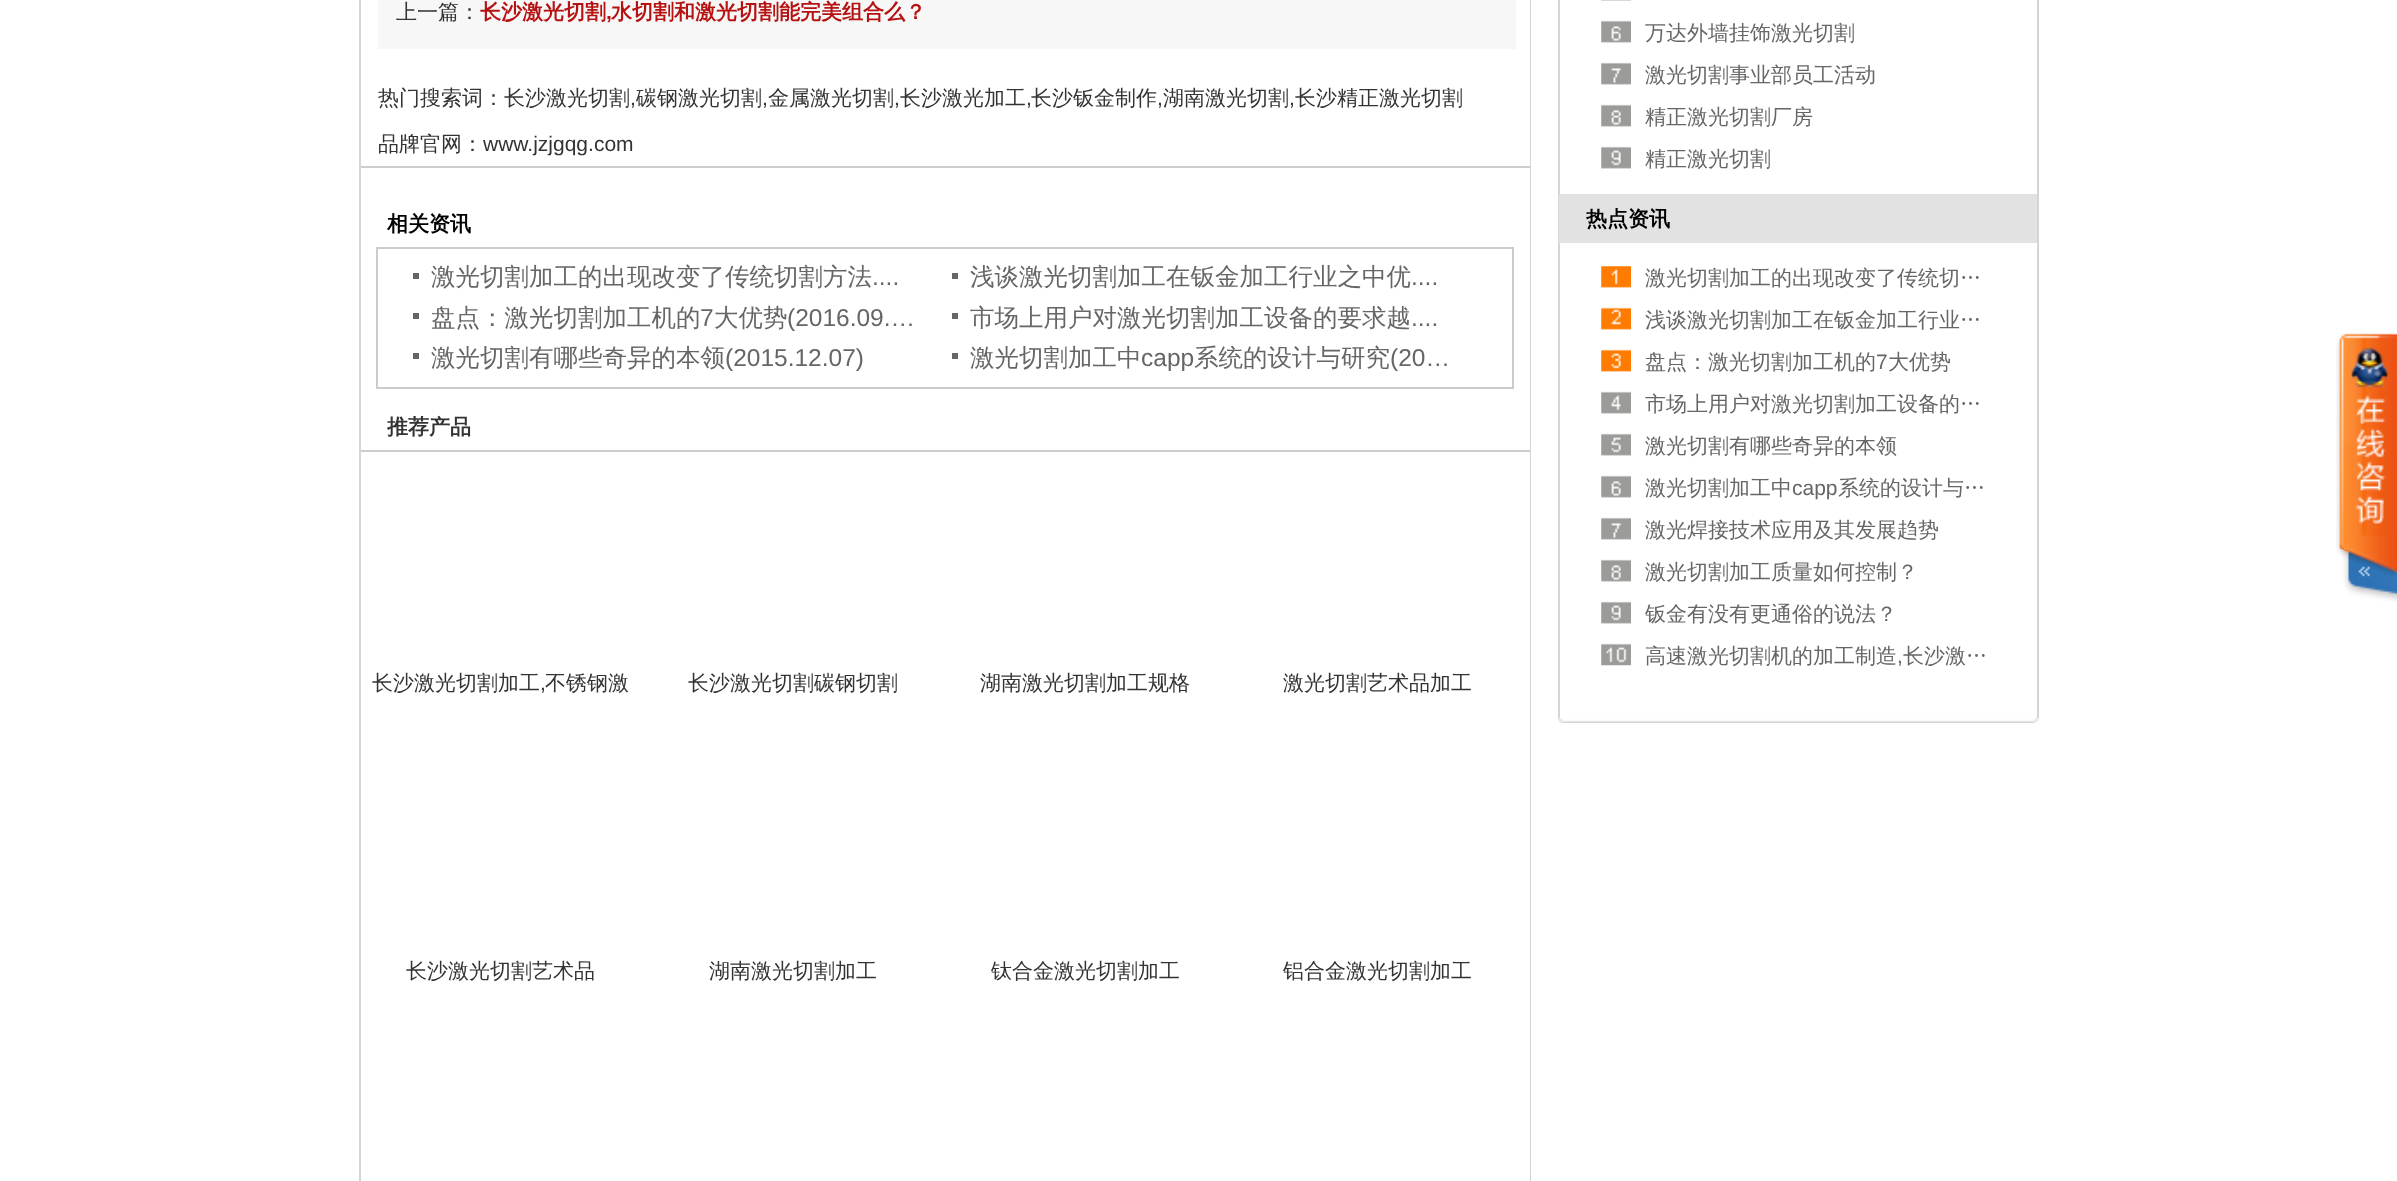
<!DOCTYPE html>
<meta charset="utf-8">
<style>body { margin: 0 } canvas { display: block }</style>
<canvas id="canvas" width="2397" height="1181"></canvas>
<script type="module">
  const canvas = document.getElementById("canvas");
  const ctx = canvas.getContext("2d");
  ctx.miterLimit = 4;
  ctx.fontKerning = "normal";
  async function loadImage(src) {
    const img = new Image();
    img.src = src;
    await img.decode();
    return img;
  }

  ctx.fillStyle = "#ffffff";
  ctx.fillRect(0, 0, 2397, 1181);
  ctx.fillStyle = "#d5d5d5";
  ctx.fillRect(1530, 0, 1, 1181);
  ctx.fillRect(359, 0, 2, 1181);
  ctx.fillStyle = "#f7f7f7";
  ctx.fillRect(378, 0, 1138, 49);
  ctx.font = "500 21px WenQuanYi Zen Hei";
  ctx.fillStyle = "#333333";
  ctx.fillText("上一篇：", 396, 19);
  ctx.font = "bold 21px WenQuanYi Zen Hei";
  ctx.fillStyle = "#b61212";
  ctx.fillText("长沙激光切割", 480, 19);
  ctx.font = "bold 21px Liberation Sans";
  ctx.fillText(",", 606, 19);
  ctx.font = "bold 21px WenQuanYi Zen Hei";
  ctx.fillText("水切割和激光切割能完美组合么？", 611, 19);
  ctx.fillStyle = "#cccccc";
  ctx.fillRect(361, 166, 1169, 2);
  ctx.font = "500 21px WenQuanYi Zen Hei";
  ctx.fillStyle = "#333333";
  ctx.fillText("热门搜索词：长沙激光切割", 378, 105);
  ctx.font = "21px Liberation Sans";
  ctx.fillText(",", 630, 105);
  ctx.font = "500 21px WenQuanYi Zen Hei";
  ctx.fillText("碳钢激光切割", 636, 105);
  ctx.font = "21px Liberation Sans";
  ctx.fillText(",", 762, 105);
  ctx.font = "500 21px WenQuanYi Zen Hei";
  ctx.fillText("金属激光切割", 768, 105);
  ctx.font = "21px Liberation Sans";
  ctx.fillText(",", 894, 105);
  ctx.font = "500 21px WenQuanYi Zen Hei";
  ctx.fillText("长沙激光加工", 900, 105);
  ctx.font = "21px Liberation Sans";
  ctx.fillText(",", 1026, 105);
  ctx.font = "500 21px WenQuanYi Zen Hei";
  ctx.fillText("长沙钣金制作", 1031, 105);
  ctx.font = "21px Liberation Sans";
  ctx.fillText(",", 1157, 105);
  ctx.font = "500 21px WenQuanYi Zen Hei";
  ctx.fillText("湖南激光切割", 1163, 105);
  ctx.font = "21px Liberation Sans";
  ctx.fillText(",", 1289, 105);
  ctx.font = "500 21px WenQuanYi Zen Hei";
  ctx.fillText("长沙精正激光切割", 1295, 105);
  ctx.fillText("品牌官网：", 378, 151);
  ctx.font = "21px Liberation Sans";
  ctx.fillText("www.jzjgqg.com", 483, 151);
  ctx.font = "bold 21px WenQuanYi Zen Hei";
  ctx.fillStyle = "#000000";
  ctx.fillText("相关资讯", 387, 231);
  ctx.strokeStyle = "#cccccc";
  ctx.lineWidth = 2;
  ctx.strokeRect(377, 248, 1136, 140);
  ctx.fillStyle = "#666666";
  ctx.fillRect(413, 273, 6, 6);
  ctx.font = "500 24.5px WenQuanYi Zen Hei";
  ctx.fillText("激光切割加工的出现改变了传统切割方法", 431, 285);
  ctx.font = "24.5px Liberation Sans";
  ctx.fillText("....", 872, 285);
  ctx.fillRect(952, 273, 6, 6);
  ctx.font = "500 24.5px WenQuanYi Zen Hei";
  ctx.fillText("浅谈激光切割加工在钣金加工行业之中优", 970, 285);
  ctx.font = "24.5px Liberation Sans";
  ctx.fillText("....", 1411, 285);
  ctx.fillRect(413, 313, 6, 6);
  ctx.font = "500 24.5px WenQuanYi Zen Hei";
  ctx.fillText("盘点：激光切割加工机的", 431, 326);
  ctx.font = "24.5px Liberation Sans";
  ctx.fillText("7", 700, 326);
  ctx.font = "500 24.5px WenQuanYi Zen Hei";
  ctx.fillText("大优势", 714, 326);
  ctx.font = "24.5px Liberation Sans";
  ctx.fillText("(2016.09.…", 787, 326);
  ctx.fillRect(952, 313, 6, 6);
  ctx.font = "500 24.5px WenQuanYi Zen Hei";
  ctx.fillText("市场上用户对激光切割加工设备的要求越", 970, 326);
  ctx.font = "24.5px Liberation Sans";
  ctx.fillText("....", 1411, 326);
  ctx.fillRect(413, 353, 6, 6);
  ctx.font = "500 24.5px WenQuanYi Zen Hei";
  ctx.fillText("激光切割有哪些奇异的本领", 431, 366);
  ctx.font = "24.5px Liberation Sans";
  ctx.fillText("(2015.12.07)", 725, 366);
  ctx.fillRect(952, 353, 6, 6);
  ctx.font = "500 24.5px WenQuanYi Zen Hei";
  ctx.fillText("激光切割加工中", 970, 366);
  ctx.font = "24.5px Liberation Sans";
  ctx.fillText("capp", 1141, 366);
  ctx.font = "500 24.5px WenQuanYi Zen Hei";
  ctx.fillText("系统的设计与研究", 1194, 366);
  ctx.font = "24.5px Liberation Sans";
  ctx.fillText("(20…", 1390, 366);
  ctx.fillStyle = "#cccccc";
  ctx.fillRect(361, 450, 1169, 2);
  ctx.font = "bold 21px WenQuanYi Zen Hei";
  ctx.fillStyle = "#333333";
  ctx.fillText("推荐产品", 387, 434);
  ctx.font = "500 21px WenQuanYi Zen Hei";
  ctx.fillText("长沙激光切割加工", 372, 690);
  ctx.font = "21px Liberation Sans";
  ctx.fillText(",", 540, 690);
  ctx.font = "500 21px WenQuanYi Zen Hei";
  ctx.fillText("不锈钢激", 545, 690);
  ctx.fillText("长沙激光切割碳钢切割", 688, 690);
  ctx.fillText("湖南激光切割加工规格", 980, 690);
  ctx.fillText("激光切割艺术品加工", 1283, 690);
  ctx.fillText("长沙激光切割艺术品", 406, 978);
  ctx.fillText("湖南激光切割加工", 709, 978);
  ctx.fillText("钛合金激光切割加工", 991, 978);
  ctx.fillText("铝合金激光切割加工", 1283, 978);
  ctx.fillStyle = "#d5d5d5";
  ctx.fillRect(2037, 0, 2, 718);
  ctx.fillRect(1558, 0, 2, 718);
  ctx.drawImage(await loadImage("img1.png"), 1601, 0, 30, 169);
  ctx.fillStyle = "#666666";
  ctx.fillText("万达外墙挂饰激光切割", 1645, 40);
  ctx.fillText("激光切割事业部员工活动", 1645, 82);
  ctx.fillText("精正激光切割厂房", 1645, 124);
  ctx.fillText("精正激光切割", 1645, 166);
  ctx.fillStyle = "#e2e2e2";
  ctx.fillRect(1559, 194, 478, 49);
  ctx.font = "bold 21px WenQuanYi Zen Hei";
  ctx.fillStyle = "#000000";
  ctx.fillText("热点资讯", 1586, 226);
  ctx.drawImage(await loadImage("img2.png"), 1601, 266, 30, 400);
  ctx.font = "500 21px WenQuanYi Zen Hei";
  ctx.fillStyle = "#666666";
  ctx.fillText("激光切割加工的出现改变了传统切…", 1645, 285);
  ctx.fillText("浅谈激光切割加工在钣金加工行业…", 1645, 327);
  ctx.fillText("盘点：激光切割加工机的", 1645, 369);
  ctx.font = "21px Liberation Sans";
  ctx.fillText("7", 1876, 369);
  ctx.font = "500 21px WenQuanYi Zen Hei";
  ctx.fillText("大优势", 1888, 369);
  ctx.fillText("市场上用户对激光切割加工设备的…", 1645, 411);
  ctx.fillText("激光切割有哪些奇异的本领", 1645, 453);
  ctx.fillText("激光切割加工中", 1645, 495);
  ctx.font = "21px Liberation Sans";
  ctx.fillText("capp", 1792, 495);
  ctx.font = "500 21px WenQuanYi Zen Hei";
  ctx.fillText("系统的设计与…", 1838, 495);
  ctx.fillText("激光焊接技术应用及其发展趋势", 1645, 537);
  ctx.fillText("激光切割加工质量如何控制？", 1645, 579);
  ctx.fillText("钣金有没有更通俗的说法？", 1645, 621);
  ctx.fillText("高速激光切割机的加工制造", 1645, 663);
  ctx.font = "21px Liberation Sans";
  ctx.fillText(",", 1897, 663);
  ctx.font = "500 21px WenQuanYi Zen Hei";
  ctx.fillText("长沙激…", 1903, 663);
  ctx.drawImage(await loadImage("img3.png"), 1557, 717, 482, 6);
  ctx.drawImage(await loadImage("img4.png"), 2336, 333, 61, 269);
</script>
